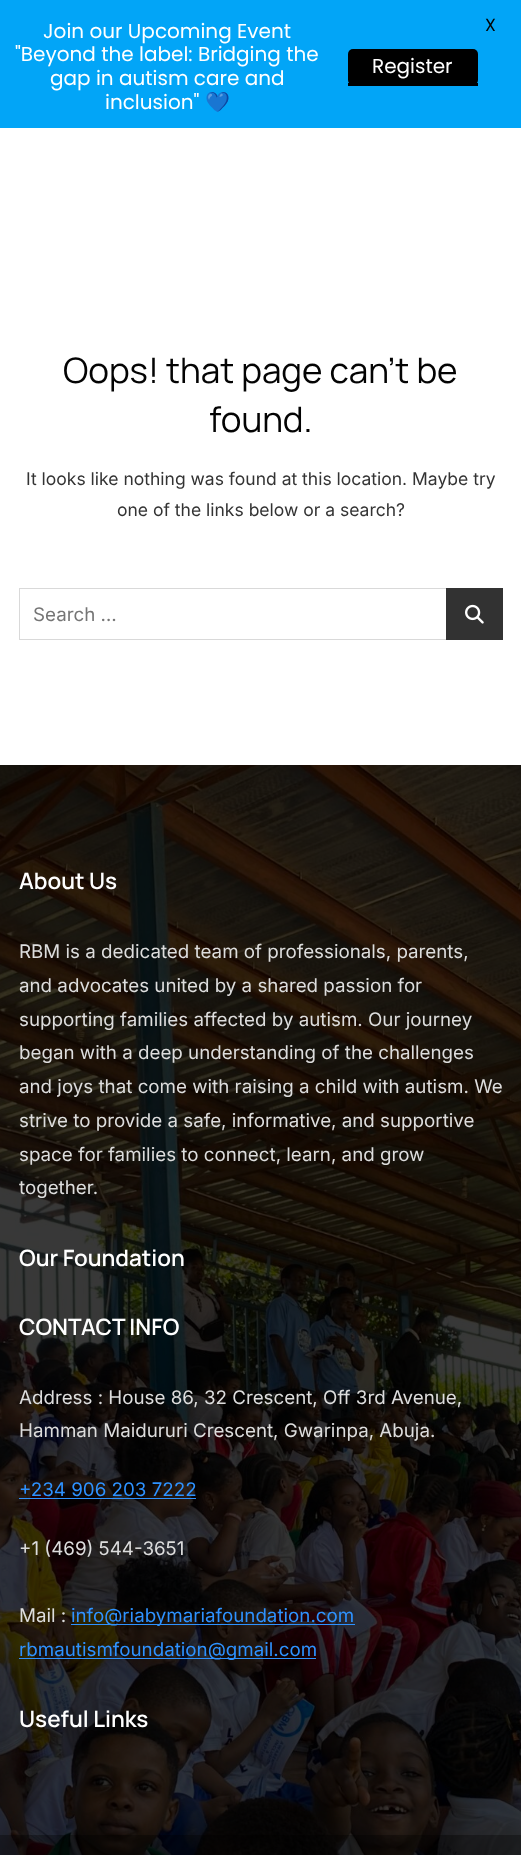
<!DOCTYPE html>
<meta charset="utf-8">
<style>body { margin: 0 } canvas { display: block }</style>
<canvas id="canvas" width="521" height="1855"></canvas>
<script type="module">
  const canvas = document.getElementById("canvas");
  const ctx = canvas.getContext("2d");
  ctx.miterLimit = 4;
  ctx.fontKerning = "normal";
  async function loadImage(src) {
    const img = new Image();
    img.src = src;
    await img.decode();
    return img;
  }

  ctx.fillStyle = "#ffffff";
  ctx.fillRect(0, 0, 521, 1855);
  ctx.fillStyle = "#02a5f7";
  ctx.fillRect(0, 0, 521, 128);
  ctx.font = "20px Poppins";
  ctx.fillStyle = "#ffffff";
  ctx.fillText("Join our Upcoming Event", 43, 38);
  ctx.fillText("\"Beyond the label: Bridging the", 15, 61);
  ctx.fillText("gap in autism care and", 50, 85);
  ctx.fillText("inclusion\"", 105, 109);
  ctx.font = "20px Noto Color Emoji";
  ctx.fillText("💙", 205, 109);
  ctx.fillStyle = "#000000";
  ctx.beginPath();
  ctx.roundRect(348, 49, 130, 36, 5);
  ctx.fill();
  ctx.font = "20px Poppins";
  ctx.fillStyle = "#ffffff";
  ctx.fillText("Register", 372, 73);
  ctx.fillStyle = "#000000";
  ctx.fillRect(348, 83, 130, 3);
  ctx.font = "17.5px Poppins";
  ctx.fillStyle = "#030303";
  ctx.fillText("X", 485, 31);
  ctx.font = "35px Manrope";
  ctx.fillText("Oops! that page can’t be", 63, 383);
  ctx.fillText("found.", 209, 432);
  ctx.font = "17.5px Inter";
  ctx.fillStyle = "#333333";
  ctx.fillText("It looks like nothing was found at this location. Maybe try", 26, 485);
  ctx.fillText("one of the links below or a search?", 117, 516);
  ctx.strokeStyle = "#d9d9d9";
  ctx.strokeRect(19.5, 588.5, 483, 51);
  ctx.font = "18.75px Inter";
  ctx.fillStyle = "#757575";
  ctx.fillText("Search …", 33, 621);
  ctx.fillStyle = "#323232";
  ctx.fillRect(446, 588, 57, 52);
  ctx.drawImage(await loadImage("img1.png"), 465, 604, 19, 20);
  ctx.drawImage(await loadImage("img2.png"), 0, 765, 521, 1090);
  ctx.font = "600 22.5px Manrope";
  ctx.fillStyle = "#ffffff";
  ctx.fillText("About Us", 19, 889);
  ctx.font = "18.75px Inter";
  ctx.fillStyle = "#dddddd";
  ctx.fillText("RBM is a dedicated team of professionals, parents,", 19, 958);
  ctx.fillText("and advocates united by a shared passion for", 19, 992);
  ctx.fillText("supporting families affected by autism. Our journey", 19, 1026);
  ctx.fillText("began with a deep understanding of the challenges", 19, 1059);
  ctx.fillText("and joys that come with raising a child with autism. We", 19, 1093);
  ctx.fillText("strive to provide a safe, informative, and supportive", 19, 1127);
  ctx.fillText("space for families to connect, learn, and grow", 19, 1161);
  ctx.fillText("together.", 19, 1194);
  ctx.font = "600 22.5px Manrope";
  ctx.fillStyle = "#ffffff";
  ctx.fillText("Our Foundation", 19, 1266);
  ctx.fillText("CONTACT INFO", 19, 1335);
  ctx.font = "18.75px Inter";
  ctx.fillStyle = "#dddddd";
  ctx.fillText("Address : House 86, 32 Crescent, Off 3rd Avenue,", 19, 1404);
  ctx.fillText("Hamman Maidururi Crescent, Gwarinpa, Abuja.", 19, 1437);
  ctx.fillStyle = "#2e92ff";
  ctx.fillText("+234 906 203 7222", 19, 1496);
  ctx.fillRect(19, 1498, 177, 1);
  ctx.fillStyle = "#dddddd";
  ctx.fillText("+1 (469) 544-3651", 19, 1555);
  ctx.fillText("Mail :", 19, 1622);
  ctx.fillStyle = "#2e92ff";
  ctx.fillRect(71, 1624, 284, 1);
  ctx.fillText("info@riabymariafoundation.com", 71, 1622);
  ctx.fillRect(19, 1658, 297, 1);
  ctx.fillText("rbmautismfoundation@gmail.com", 19, 1656);
  ctx.font = "600 22.5px Manrope";
  ctx.fillStyle = "#ffffff";
  ctx.fillText("Useful Links", 19, 1727);
  ctx.fillStyle = "rgba(0, 0, 0, 0.85)";
  ctx.fillRect(0, 1835, 521, 20);
</script>
